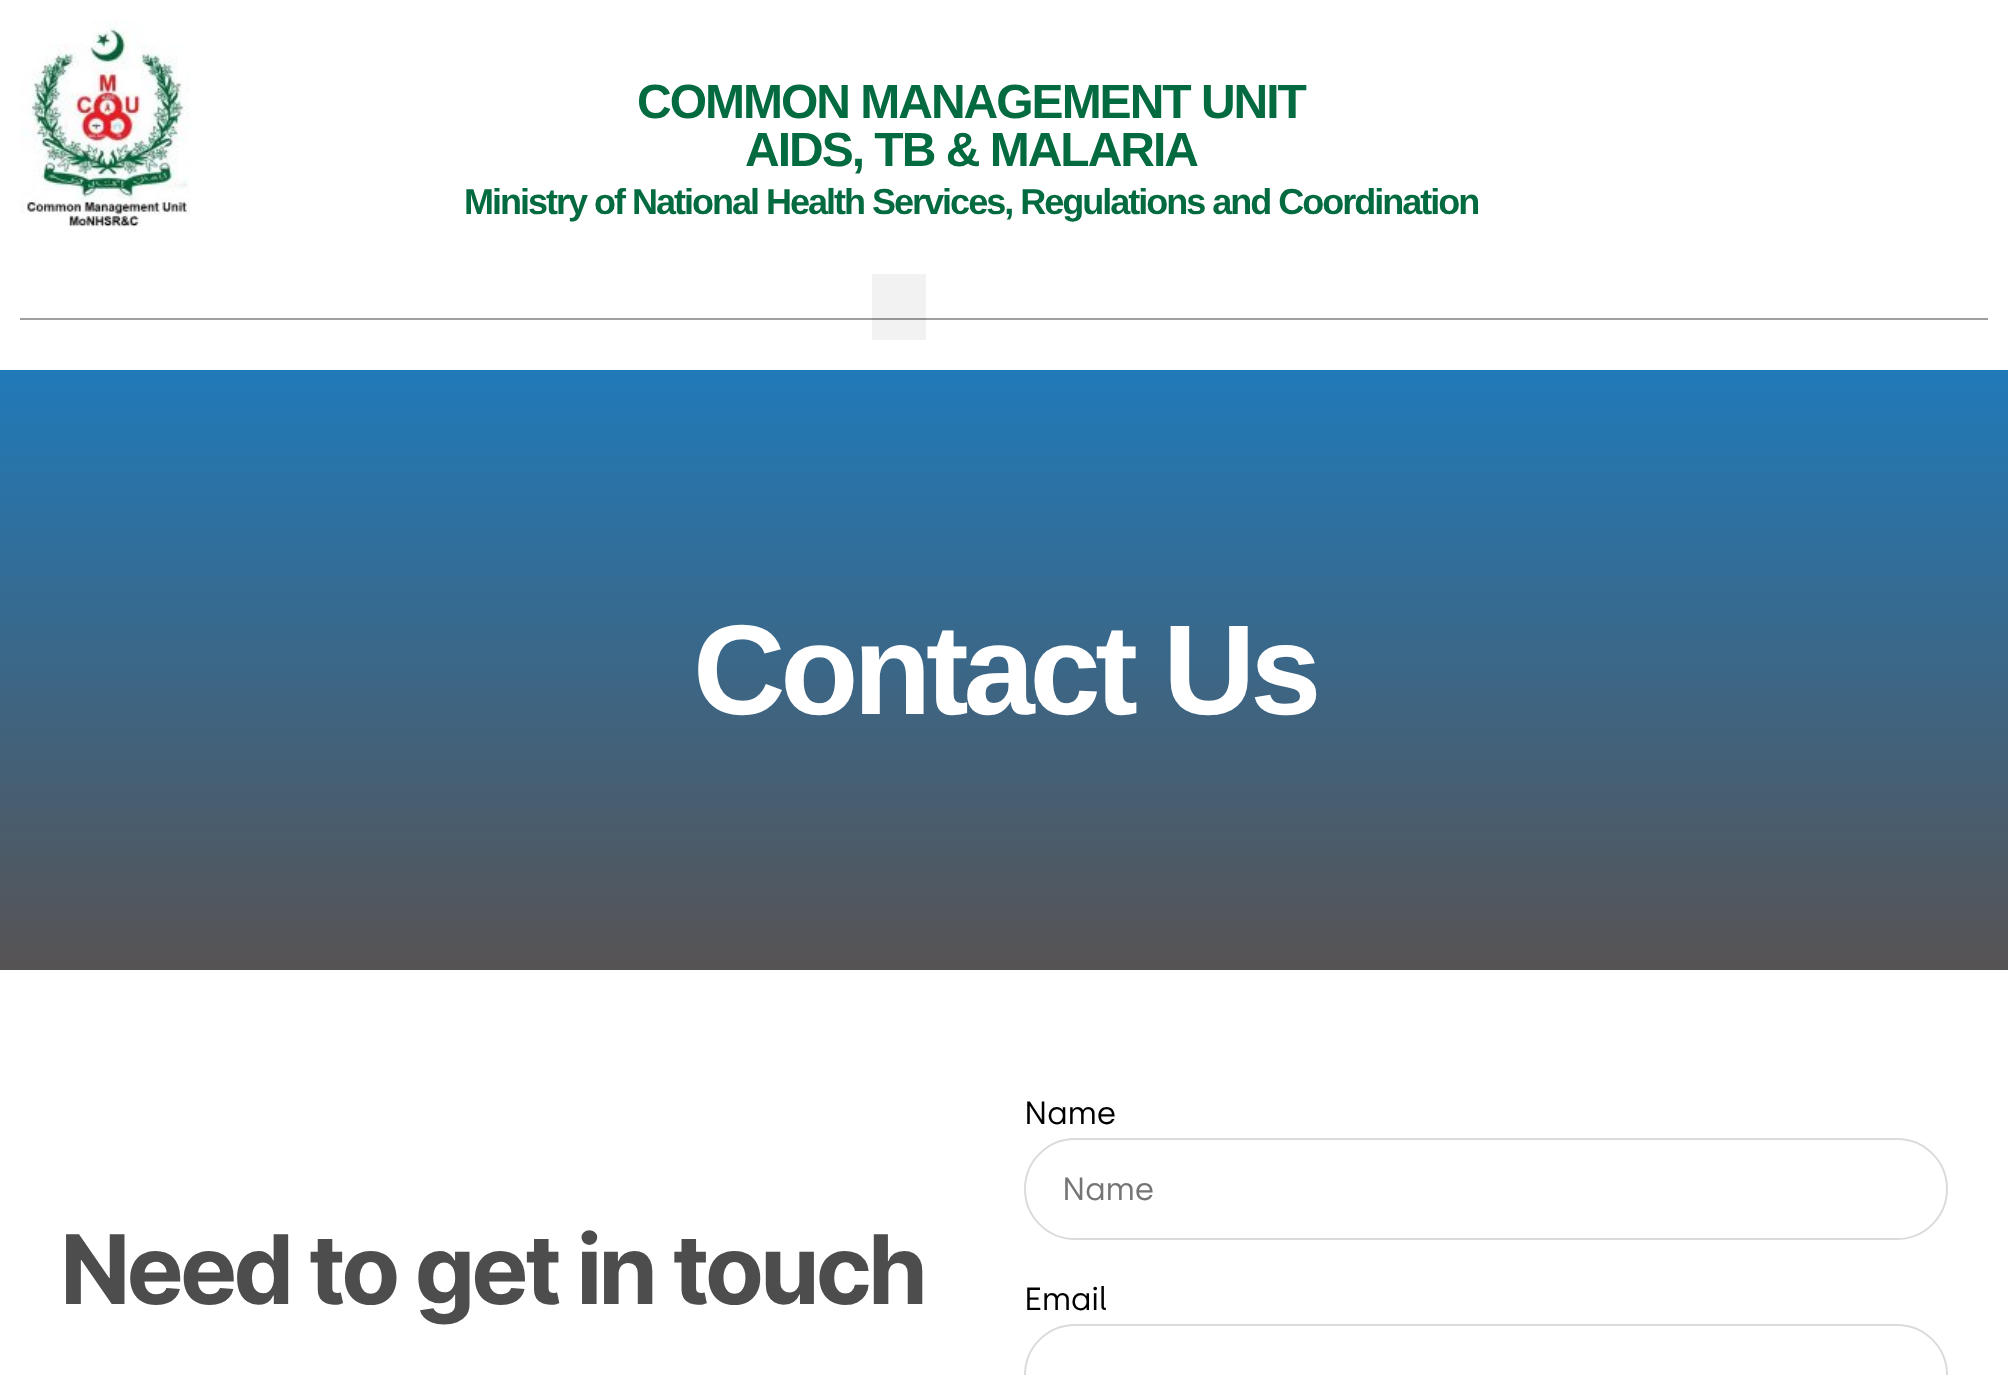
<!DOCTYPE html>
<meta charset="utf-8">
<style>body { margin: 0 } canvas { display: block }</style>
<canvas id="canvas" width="2008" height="1375"></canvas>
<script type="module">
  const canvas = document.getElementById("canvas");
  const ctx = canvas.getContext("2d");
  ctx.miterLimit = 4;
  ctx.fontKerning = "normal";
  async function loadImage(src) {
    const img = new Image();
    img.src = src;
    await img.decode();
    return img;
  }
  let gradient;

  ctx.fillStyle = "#ffffff";
  ctx.fillRect(0, 0, 2008, 1375);
  ctx.drawImage(await loadImage("img1.png"), 20, 20, 170, 207);
  ctx.letterSpacing = "-2px";
  ctx.font = "bold 48px Liberation Sans";
  ctx.fillStyle = "#046a3f";
  ctx.fillText("COMMON MANAGEMENT UNIT", 637, 118);
  ctx.fillText("AIDS, TB & MALARIA", 745, 166);
  ctx.font = "bold 36px Liberation Sans";
  ctx.fillText("Ministry of National Health Services, Regulations and Coordination", 464, 214);
  ctx.fillStyle = "#a09f9f";
  ctx.fillRect(20, 318, 1968, 2);
  ctx.fillStyle = "rgba(0, 0, 0, 0.05)";
  ctx.fillRect(872, 274, 54, 66);
  gradient = ctx.createLinearGradient(1004, 370, 1004, 970);
  gradient.addColorStop(0, "#207ab9");
  gradient.addColorStop(1, "#575354");
  ctx.fillStyle = gradient;
  ctx.fillRect(0, 370, 2008, 600);
  ctx.letterSpacing = "-5.25px";
  ctx.font = "bold 128px Liberation Sans";
  ctx.fillStyle = "#ffffff";
  ctx.fillText("Contact Us", 693, 714);
  ctx.letterSpacing = "-4px";
  ctx.font = "bold 96px Inter";
  ctx.fillStyle = "#4e4d4d";
  ctx.fillText("Need to get in touch", 60, 1304);
  ctx.letterSpacing = "-0.5px";
  ctx.font = "32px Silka";
  ctx.fillStyle = "#000000";
  ctx.fillText("Name", 1024, 1124);
  ctx.beginPath();
  ctx.roundRect(1025, 1139, 922, 100, 50);
  ctx.strokeStyle = "#dbdbdb";
  ctx.lineWidth = 2;
  ctx.stroke();
  ctx.fillStyle = "#757575";
  ctx.fillText("Name", 1062, 1200);
  ctx.fillStyle = "#000000";
  ctx.fillText("Email", 1024, 1310);
  ctx.beginPath();
  ctx.roundRect(1025, 1325, 922, 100, 50);
  ctx.stroke();
</script>
